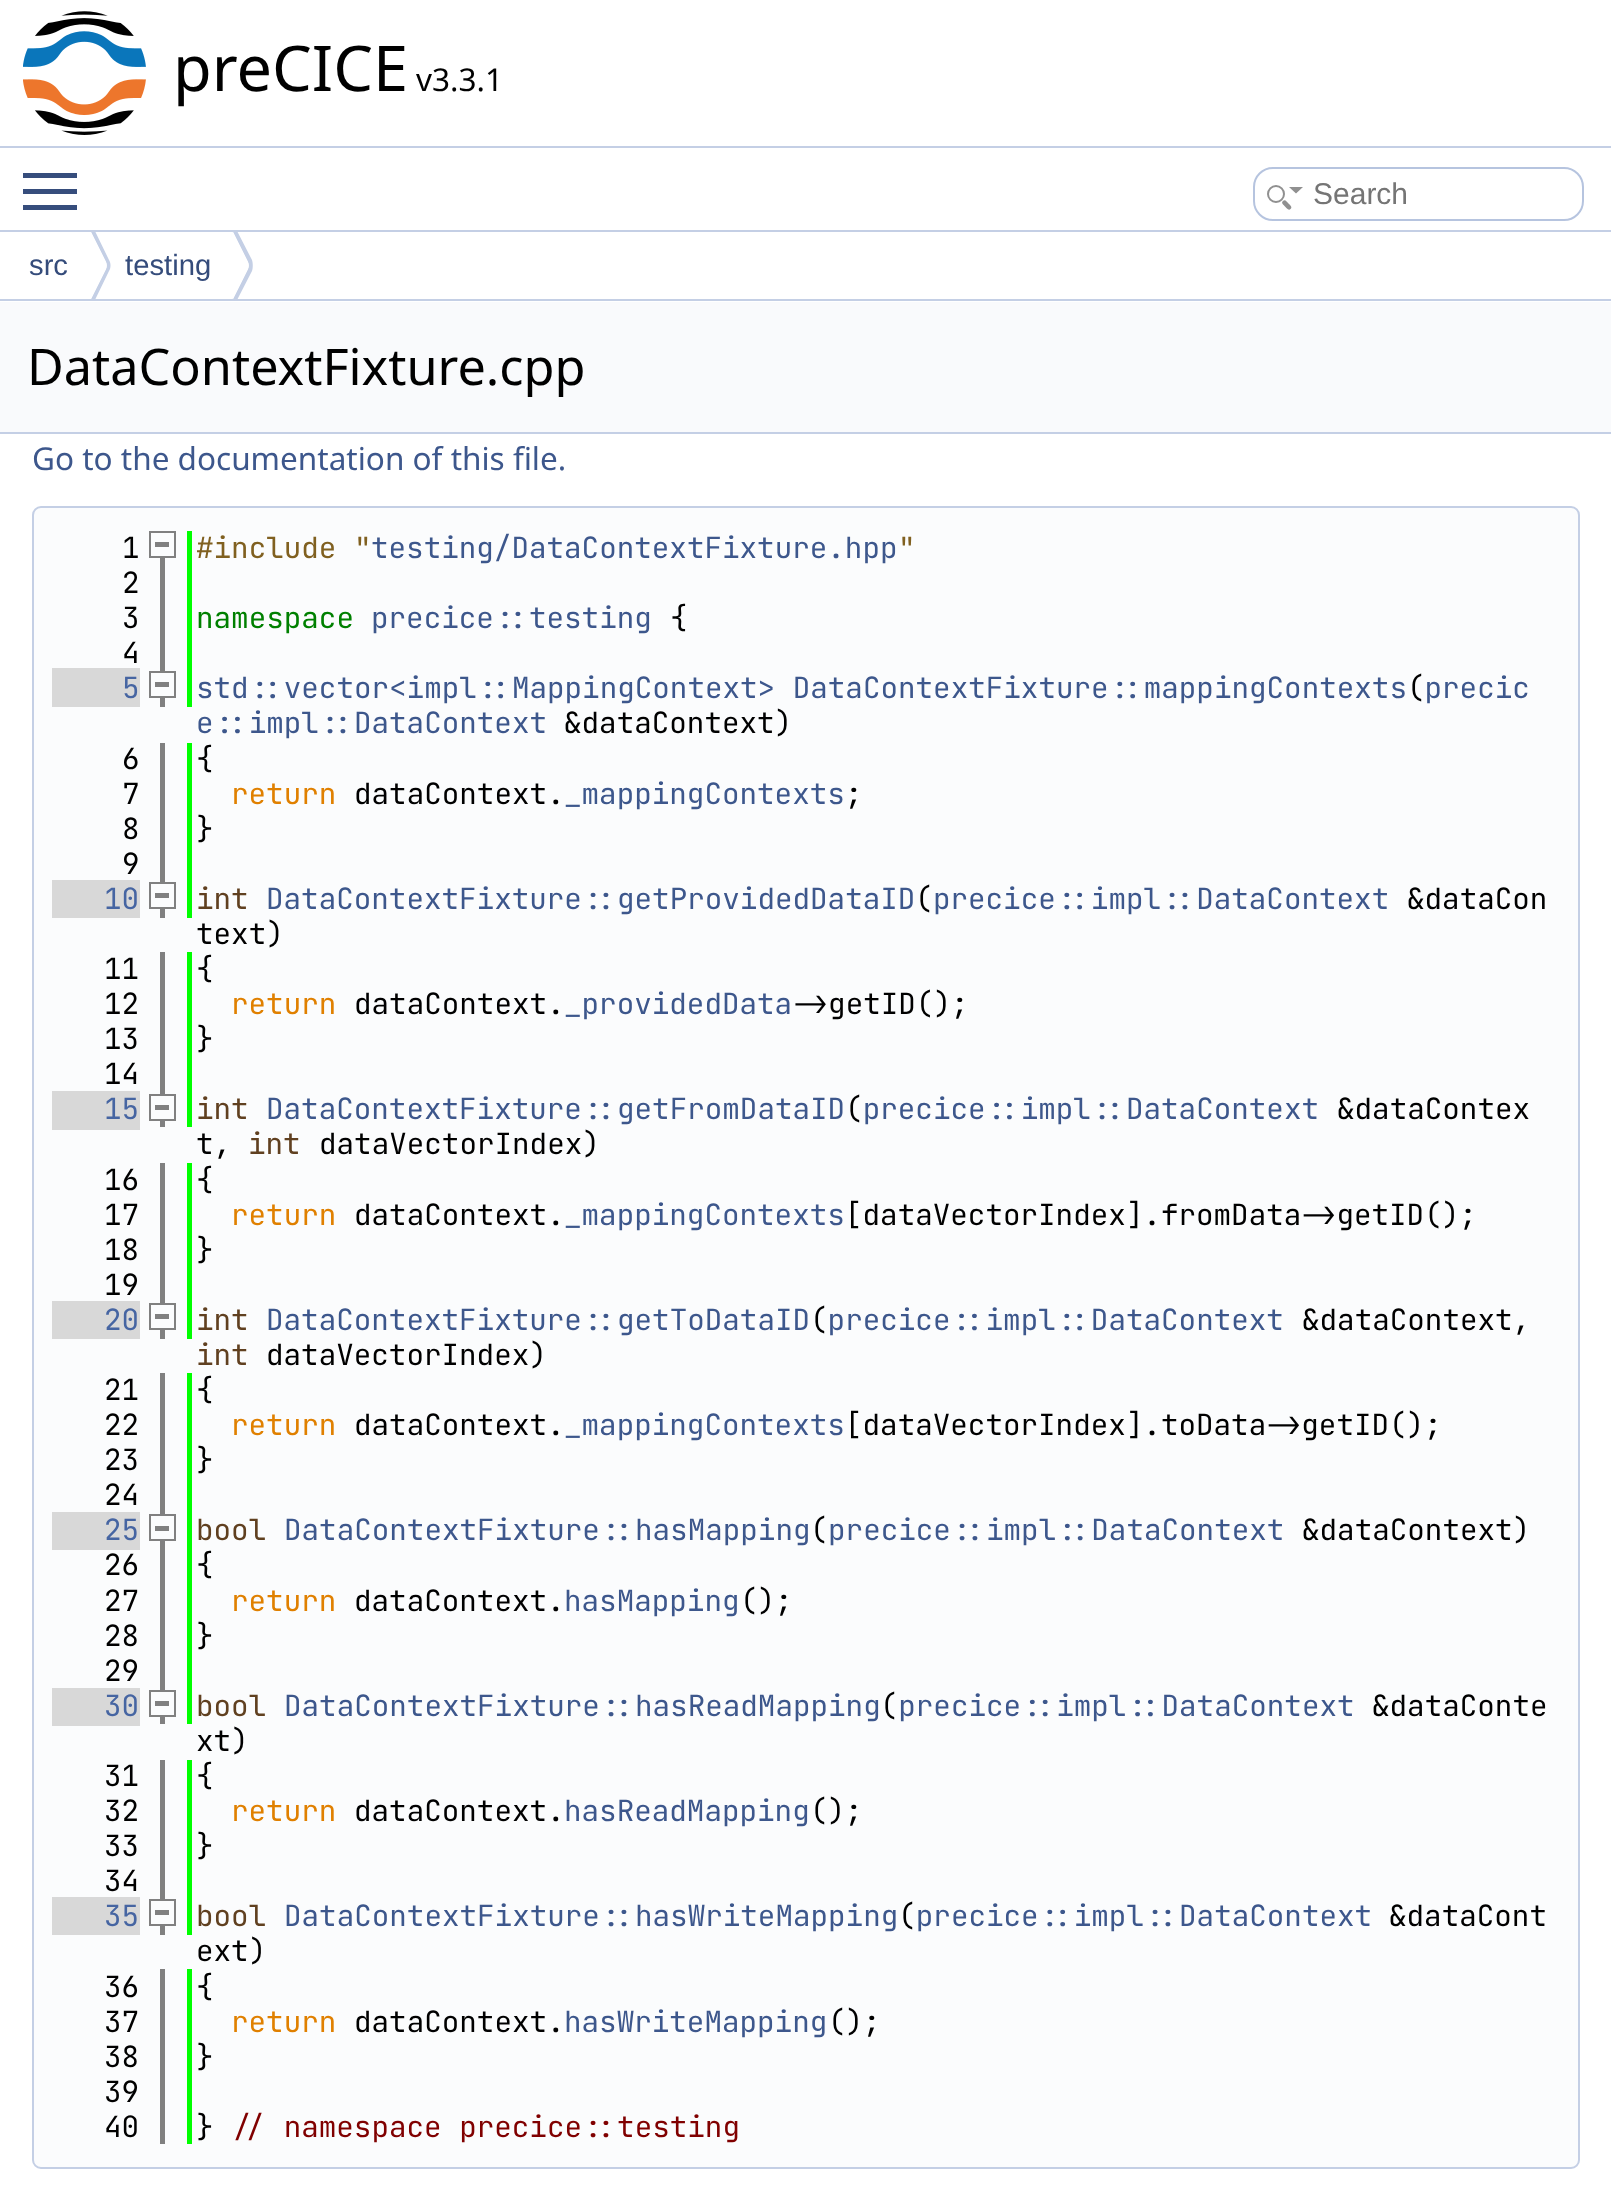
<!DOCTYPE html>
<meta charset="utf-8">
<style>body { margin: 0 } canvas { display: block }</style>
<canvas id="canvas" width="1611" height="2207"></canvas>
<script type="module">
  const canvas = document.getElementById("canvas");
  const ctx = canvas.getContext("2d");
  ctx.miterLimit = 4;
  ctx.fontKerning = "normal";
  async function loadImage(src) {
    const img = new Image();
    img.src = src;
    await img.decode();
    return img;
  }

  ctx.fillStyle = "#ffffff";
  ctx.fillRect(0, 0, 1611, 2207);
  ctx.fillStyle = "#c4cfe5";
  ctx.fillRect(0, 146, 1611, 2);
  ctx.drawImage(await loadImage("img1.png"), 23, 11, 123, 124);
  ctx.font = "63px Noto Sans";
  ctx.fillStyle = "#000000";
  ctx.fillText("preCICE", 173, 91);
  ctx.font = "31.5px Noto Sans";
  ctx.fillText("v3.3.1", 416, 91);
  ctx.fillStyle = "#364d7c";
  ctx.fillRect(23, 189, 54, 5);
  ctx.fillRect(23, 173, 54, 5);
  ctx.fillRect(23, 205, 54, 5);
  ctx.beginPath();
  ctx.roundRect(1254, 168, 329, 52, 19);
  ctx.strokeStyle = "#b6c4df";
  ctx.lineWidth = 2;
  ctx.stroke();
  ctx.beginPath();
  ctx.arc(1276, 194, 8, 0, Math.PI * 2);
  ctx.strokeStyle = "#909090";
  ctx.stroke();
  ctx.fillStyle = "#909090";
  ctx.beginPath();
  ctx.moveTo(1289, 187);
  ctx.lineTo(1303, 187);
  ctx.lineTo(1296, 193.5);
  ctx.closePath();
  ctx.moveTo(1283, 201);
  ctx.bezierCurveTo(1285, 199, 1287, 202, 1288.5, 203.5);
  ctx.bezierCurveTo(1289.5, 204.5, 1293, 207, 1290.5, 209);
  ctx.bezierCurveTo(1288.5, 211, 1286.5, 208, 1285, 206.5);
  ctx.bezierCurveTo(1284, 205, 1280.5, 203, 1283, 201);
  ctx.closePath();
  ctx.fill();
  ctx.font = "30px Liberation Sans";
  ctx.fillStyle = "#757575";
  ctx.fillText("Search", 1313, 204);
  ctx.fillStyle = "#c4cfe5";
  ctx.fillRect(0, 230, 1611, 2);
  ctx.fillRect(0, 299, 1611, 2);
  ctx.font = "29.25px Liberation Sans";
  ctx.fillStyle = "#354c7b";
  ctx.fillText("src", 29, 275);
  ctx.save();
  ctx.beginPath();
  ctx.rect(0, 232, 1611, 67);
  ctx.clip();
  ctx.fillStyle = "#c4cfe5";
  ctx.beginPath();
  ctx.moveTo(93, 227);
  ctx.lineTo(91, 232);
  ctx.lineTo(106, 262);
  ctx.bezierCurveTo(107, 264, 107, 267, 106, 269);
  ctx.lineTo(91, 299);
  ctx.lineTo(93, 304);
  ctx.lineTo(109, 271);
  ctx.bezierCurveTo(111, 268, 111, 263, 109, 260);
  ctx.closePath();
  ctx.fill();
  ctx.restore();
  ctx.fillStyle = "#ffffff";
  ctx.beginPath();
  ctx.moveTo(91, 232);
  ctx.lineTo(106, 262);
  ctx.bezierCurveTo(107, 264, 107, 267, 106, 269);
  ctx.lineTo(91, 299);
  ctx.bezierCurveTo(81, 281, 81, 250, 91, 232);
  ctx.closePath();
  ctx.fill();
  ctx.fillStyle = "#354c7b";
  ctx.fillText("testing", 125, 275);
  ctx.save();
  ctx.beginPath();
  ctx.rect(0, 232, 1611, 67);
  ctx.clip();
  ctx.fillStyle = "#c4cfe5";
  ctx.beginPath();
  ctx.moveTo(235, 227);
  ctx.lineTo(230, 239);
  ctx.lineTo(233, 232);
  ctx.lineTo(248, 262);
  ctx.bezierCurveTo(249, 264, 249, 267, 248, 269);
  ctx.lineTo(233, 299);
  ctx.lineTo(232, 297);
  ctx.lineTo(235, 304);
  ctx.lineTo(252, 271);
  ctx.bezierCurveTo(253, 268, 253, 263, 252, 260);
  ctx.closePath();
  ctx.fill();
  ctx.restore();
  ctx.fillStyle = "#ffffff";
  ctx.beginPath();
  ctx.moveTo(233, 232);
  ctx.lineTo(248, 262);
  ctx.bezierCurveTo(249, 264, 249, 267, 248, 269);
  ctx.lineTo(233, 299);
  ctx.bezierCurveTo(224, 281, 224, 250, 233, 232);
  ctx.closePath();
  ctx.fill();
  ctx.fillStyle = "#f9fafc";
  ctx.fillRect(0, 302, 1611, 130);
  ctx.fillStyle = "#c4cfe5";
  ctx.fillRect(0, 432, 1611, 2);
  ctx.font = "50.4px Noto Sans";
  ctx.fillStyle = "#000000";
  ctx.fillText("DataContextFixture.cpp", 27, 385);
  ctx.font = "31.5px Noto Sans";
  ctx.fillStyle = "#3d578c";
  ctx.fillText("Go to the documentation of this file.", 32, 470);
  ctx.fillStyle = "#fbfcfd";
  ctx.beginPath();
  ctx.roundRect(33, 507, 1546, 1661, 8);
  ctx.fill();
  ctx.strokeStyle = "#c4cfe5";
  ctx.stroke();
  ctx.fillStyle = "#808080";
  ctx.fillRect(160, 558, 5, 113);
  ctx.fillStyle = "#00ff00";
  ctx.fillRect(187, 531, 5, 176);
  ctx.font = "29.25px JetBrains Mono";
  ctx.fillStyle = "#000000";
  ctx.fillText("1", 122, 558);
  ctx.strokeStyle = "#808080";
  ctx.strokeRect(150, 532, 25, 25);
  ctx.fillStyle = "#808080";
  ctx.fillRect(155, 542, 14, 5);
  ctx.fillStyle = "#806020";
  ctx.fillText("#include \"", 196, 558);
  ctx.fillStyle = "#3d578c";
  ctx.fillText("testing/DataContextFixture.hpp", 371, 558);
  ctx.fillStyle = "#806020";
  ctx.fillText("\"", 898, 558);
  ctx.fillStyle = "#000000";
  ctx.fillText("2", 122, 593);
  ctx.fillText("3", 122, 628);
  ctx.fillStyle = "#008000";
  ctx.fillText("namespace", 196, 628);
  ctx.fillStyle = "#3d578c";
  ctx.fillText("precice::testing", 371, 628);
  ctx.fillStyle = "#000000";
  ctx.fillText("{", 670, 628);
  ctx.fillText("4", 122, 663);
  ctx.fillStyle = "#3d578c";
  ctx.fillText("std::vector<impl::MappingContext> DataContextFixture::mappingContexts precic", 196, 698);
  ctx.fillStyle = "#000000";
  ctx.fillText("(", 1407, 698);
  ctx.fillStyle = "#808080";
  ctx.fillRect(160, 698, 5, 9);
  ctx.fillStyle = "#d8d8d8";
  ctx.fillRect(52, 668, 88, 39);
  ctx.fillStyle = "#4665a2";
  ctx.fillText("5", 122, 698);
  ctx.strokeRect(150, 672, 25, 25);
  ctx.fillStyle = "#808080";
  ctx.fillRect(155, 682, 14, 5);
  ctx.fillStyle = "#3d578c";
  ctx.fillText("e::impl::DataContext", 196, 733);
  ctx.fillStyle = "#000000";
  ctx.fillText("&dataContext)", 564, 733);
  ctx.fillStyle = "#808080";
  ctx.fillRect(160, 743, 5, 139);
  ctx.fillStyle = "#00ff00";
  ctx.fillRect(187, 743, 5, 175);
  ctx.fillStyle = "#000000";
  ctx.fillText("6", 122, 769);
  ctx.fillText("{", 196, 769);
  ctx.fillText("7", 122, 804);
  ctx.fillStyle = "#e08000";
  ctx.fillText("return", 231, 804);
  ctx.fillStyle = "#000000";
  ctx.fillText("dataContext.", 354, 804);
  ctx.fillStyle = "#3d578c";
  ctx.fillText("_mappingContexts", 564, 804);
  ctx.fillStyle = "#000000";
  ctx.fillText(";", 845, 804);
  ctx.fillText("8", 122, 839);
  ctx.fillText("}", 196, 839);
  ctx.fillText("9", 122, 874);
  ctx.fillStyle = "#604020";
  ctx.fillText("int", 196, 909);
  ctx.fillStyle = "#3d578c";
  ctx.fillText("DataContextFixture::getProvidedDataID precice::impl::DataContext", 266, 909);
  ctx.fillStyle = "#000000";
  ctx.fillText("(", 915, 909);
  ctx.fillStyle = "#808080";
  ctx.fillRect(160, 909, 5, 9);
  ctx.fillStyle = "#d8d8d8";
  ctx.fillRect(52, 880, 88, 38);
  ctx.fillStyle = "#4665a2";
  ctx.fillText("10", 104, 909);
  ctx.strokeRect(150, 883, 25, 25);
  ctx.fillStyle = "#808080";
  ctx.fillRect(155, 893, 14, 5);
  ctx.fillStyle = "#000000";
  ctx.fillText("&dataCon", 1407, 909);
  ctx.fillText("text)", 196, 944);
  ctx.fillStyle = "#808080";
  ctx.fillRect(160, 952, 5, 142);
  ctx.fillStyle = "#00ff00";
  ctx.fillRect(187, 952, 5, 175);
  ctx.fillStyle = "#000000";
  ctx.fillText("11", 104, 979);
  ctx.fillText("{", 196, 979);
  ctx.fillText("12", 104, 1014);
  ctx.fillStyle = "#e08000";
  ctx.fillText("return", 231, 1014);
  ctx.fillStyle = "#000000";
  ctx.fillText("dataContext.", 354, 1014);
  ctx.fillStyle = "#3d578c";
  ctx.fillText("_providedData", 564, 1014);
  ctx.fillStyle = "#000000";
  ctx.fillText("->getID();", 793, 1014);
  ctx.fillText("13", 104, 1049);
  ctx.fillText("}", 196, 1049);
  ctx.fillText("14", 104, 1084);
  ctx.fillStyle = "#604020";
  ctx.fillText("int", 196, 1119);
  ctx.fillStyle = "#3d578c";
  ctx.fillText("DataContextFixture::getFromDataID precice::impl::DataContext", 266, 1119);
  ctx.fillStyle = "#000000";
  ctx.fillText("(", 845, 1119);
  ctx.fillStyle = "#808080";
  ctx.fillRect(160, 1121, 5, 6);
  ctx.fillStyle = "#d8d8d8";
  ctx.fillRect(52, 1091, 88, 39);
  ctx.fillStyle = "#4665a2";
  ctx.fillText("15", 104, 1119);
  ctx.strokeRect(150, 1095, 25, 25);
  ctx.fillStyle = "#808080";
  ctx.fillRect(155, 1105, 14, 5);
  ctx.fillStyle = "#000000";
  ctx.fillText("&dataContex", 1337, 1119);
  ctx.fillText("t,", 196, 1154);
  ctx.fillStyle = "#604020";
  ctx.fillText("int", 248, 1154);
  ctx.fillStyle = "#000000";
  ctx.fillText("dataVectorIndex)", 319, 1154);
  ctx.fillStyle = "#808080";
  ctx.fillRect(160, 1163, 5, 140);
  ctx.fillStyle = "#00ff00";
  ctx.fillRect(187, 1163, 5, 176);
  ctx.fillStyle = "#000000";
  ctx.fillText("16", 104, 1190);
  ctx.fillText("{", 196, 1190);
  ctx.fillText("17", 104, 1225);
  ctx.fillStyle = "#e08000";
  ctx.fillText("return", 231, 1225);
  ctx.fillStyle = "#000000";
  ctx.fillText("dataContext.", 354, 1225);
  ctx.fillStyle = "#3d578c";
  ctx.fillText("_mappingContexts", 564, 1225);
  ctx.fillStyle = "#000000";
  ctx.fillText("[dataVectorIndex].fromData->getID();", 845, 1225);
  ctx.fillText("18", 104, 1260);
  ctx.fillText("}", 196, 1260);
  ctx.fillText("19", 104, 1295);
  ctx.fillStyle = "#604020";
  ctx.fillText("int", 196, 1330);
  ctx.fillStyle = "#3d578c";
  ctx.fillText("DataContextFixture::getToDataID precice::impl::DataContext", 266, 1330);
  ctx.fillStyle = "#000000";
  ctx.fillText("(", 810, 1330);
  ctx.fillStyle = "#808080";
  ctx.fillRect(160, 1330, 5, 9);
  ctx.fillStyle = "#d8d8d8";
  ctx.fillRect(52, 1301, 88, 38);
  ctx.fillStyle = "#4665a2";
  ctx.fillText("20", 104, 1330);
  ctx.strokeRect(150, 1304, 25, 25);
  ctx.fillStyle = "#808080";
  ctx.fillRect(155, 1314, 14, 5);
  ctx.fillStyle = "#000000";
  ctx.fillText("&dataContext,", 1302, 1330);
  ctx.fillStyle = "#604020";
  ctx.fillText("int", 196, 1365);
  ctx.fillStyle = "#000000";
  ctx.fillText("dataVectorIndex)", 266, 1365);
  ctx.fillStyle = "#808080";
  ctx.fillRect(160, 1373, 5, 141);
  ctx.fillStyle = "#00ff00";
  ctx.fillRect(187, 1373, 5, 351);
  ctx.fillStyle = "#000000";
  ctx.fillText("21", 104, 1400);
  ctx.fillText("{", 196, 1400);
  ctx.fillText("22", 104, 1435);
  ctx.fillStyle = "#e08000";
  ctx.fillText("return", 231, 1435);
  ctx.fillStyle = "#000000";
  ctx.fillText("dataContext.", 354, 1435);
  ctx.fillStyle = "#3d578c";
  ctx.fillText("_mappingContexts", 564, 1435);
  ctx.fillStyle = "#000000";
  ctx.fillText("[dataVectorIndex].toData->getID();", 845, 1435);
  ctx.fillText("23", 104, 1470);
  ctx.fillText("}", 196, 1470);
  ctx.fillText("24", 104, 1505);
  ctx.fillStyle = "#3d578c";
  ctx.fillText("DataContextFixture::hasMapping precice::impl::DataContext", 284, 1540);
  ctx.fillStyle = "#000000";
  ctx.fillText("(", 810, 1540);
  ctx.fillText("&dataContext)", 1302, 1540);
  ctx.fillStyle = "#808080";
  ctx.fillRect(160, 1541, 5, 149);
  ctx.fillStyle = "#d8d8d8";
  ctx.fillRect(52, 1512, 88, 38);
  ctx.fillStyle = "#4665a2";
  ctx.fillText("25", 104, 1540);
  ctx.strokeRect(150, 1515, 25, 25);
  ctx.fillStyle = "#808080";
  ctx.fillRect(155, 1526, 14, 5);
  ctx.fillStyle = "#604020";
  ctx.fillText("bool", 196, 1540);
  ctx.fillStyle = "#000000";
  ctx.fillText("26", 104, 1575);
  ctx.fillText("{", 196, 1575);
  ctx.fillText("27", 104, 1611);
  ctx.fillStyle = "#e08000";
  ctx.fillText("return", 231, 1611);
  ctx.fillStyle = "#000000";
  ctx.fillText("dataContext.", 354, 1611);
  ctx.fillStyle = "#3d578c";
  ctx.fillText("hasMapping", 564, 1611);
  ctx.fillStyle = "#000000";
  ctx.fillText("();", 740, 1611);
  ctx.fillText("28", 104, 1646);
  ctx.fillText("}", 196, 1646);
  ctx.fillText("29", 104, 1681);
  ctx.fillStyle = "#3d578c";
  ctx.fillText("DataContextFixture::hasReadMapping precice::impl::DataContext", 284, 1716);
  ctx.fillStyle = "#000000";
  ctx.fillText("(", 880, 1716);
  ctx.fillStyle = "#808080";
  ctx.fillRect(160, 1717, 5, 7);
  ctx.fillStyle = "#d8d8d8";
  ctx.fillRect(52, 1688, 88, 38);
  ctx.fillStyle = "#4665a2";
  ctx.fillText("30", 104, 1716);
  ctx.strokeRect(150, 1691, 25, 25);
  ctx.fillStyle = "#808080";
  ctx.fillRect(155, 1701, 14, 5);
  ctx.fillStyle = "#604020";
  ctx.fillText("bool", 196, 1716);
  ctx.fillStyle = "#000000";
  ctx.fillText("&dataConte", 1372, 1716);
  ctx.fillText("xt)", 196, 1751);
  ctx.fillStyle = "#808080";
  ctx.fillRect(160, 1760, 5, 139);
  ctx.fillStyle = "#00ff00";
  ctx.fillRect(187, 1760, 5, 175);
  ctx.fillStyle = "#000000";
  ctx.fillText("31", 104, 1786);
  ctx.fillText("{", 196, 1786);
  ctx.fillText("32", 104, 1821);
  ctx.fillStyle = "#e08000";
  ctx.fillText("return", 231, 1821);
  ctx.fillStyle = "#000000";
  ctx.fillText("dataContext.", 354, 1821);
  ctx.fillStyle = "#3d578c";
  ctx.fillText("hasReadMapping", 564, 1821);
  ctx.fillStyle = "#000000";
  ctx.fillText("();", 810, 1821);
  ctx.fillText("33", 104, 1856);
  ctx.fillText("}", 196, 1856);
  ctx.fillText("34", 104, 1891);
  ctx.fillStyle = "#3d578c";
  ctx.fillText("DataContextFixture::hasWriteMapping precice::impl::DataContext", 284, 1926);
  ctx.fillStyle = "#000000";
  ctx.fillText("(", 898, 1926);
  ctx.fillStyle = "#808080";
  ctx.fillRect(160, 1926, 5, 9);
  ctx.fillStyle = "#d8d8d8";
  ctx.fillRect(52, 1897, 88, 38);
  ctx.fillStyle = "#4665a2";
  ctx.fillText("35", 104, 1926);
  ctx.strokeRect(150, 1900, 25, 25);
  ctx.fillStyle = "#808080";
  ctx.fillRect(155, 1910, 14, 5);
  ctx.fillStyle = "#604020";
  ctx.fillText("bool", 196, 1926);
  ctx.fillStyle = "#000000";
  ctx.fillText("&dataCont", 1389, 1926);
  ctx.fillText("ext)", 196, 1961);
  ctx.fillStyle = "#808080";
  ctx.fillRect(160, 1969, 5, 175);
  ctx.fillStyle = "#00ff00";
  ctx.fillRect(187, 1969, 5, 175);
  ctx.fillStyle = "#000000";
  ctx.fillText("36", 104, 1997);
  ctx.fillText("{", 196, 1997);
  ctx.fillText("37", 104, 2032);
  ctx.fillStyle = "#e08000";
  ctx.fillText("return", 231, 2032);
  ctx.fillStyle = "#000000";
  ctx.fillText("dataContext.", 354, 2032);
  ctx.fillStyle = "#3d578c";
  ctx.fillText("hasWriteMapping", 564, 2032);
  ctx.fillStyle = "#000000";
  ctx.fillText("();", 828, 2032);
  ctx.fillText("38", 104, 2067);
  ctx.fillText("}", 196, 2067);
  ctx.fillText("39", 104, 2102);
  ctx.fillText("40", 104, 2137);
  ctx.fillText("}", 196, 2137);
  ctx.fillStyle = "#800000";
  ctx.fillText("// namespace precice::testing", 231, 2137);
</script>
